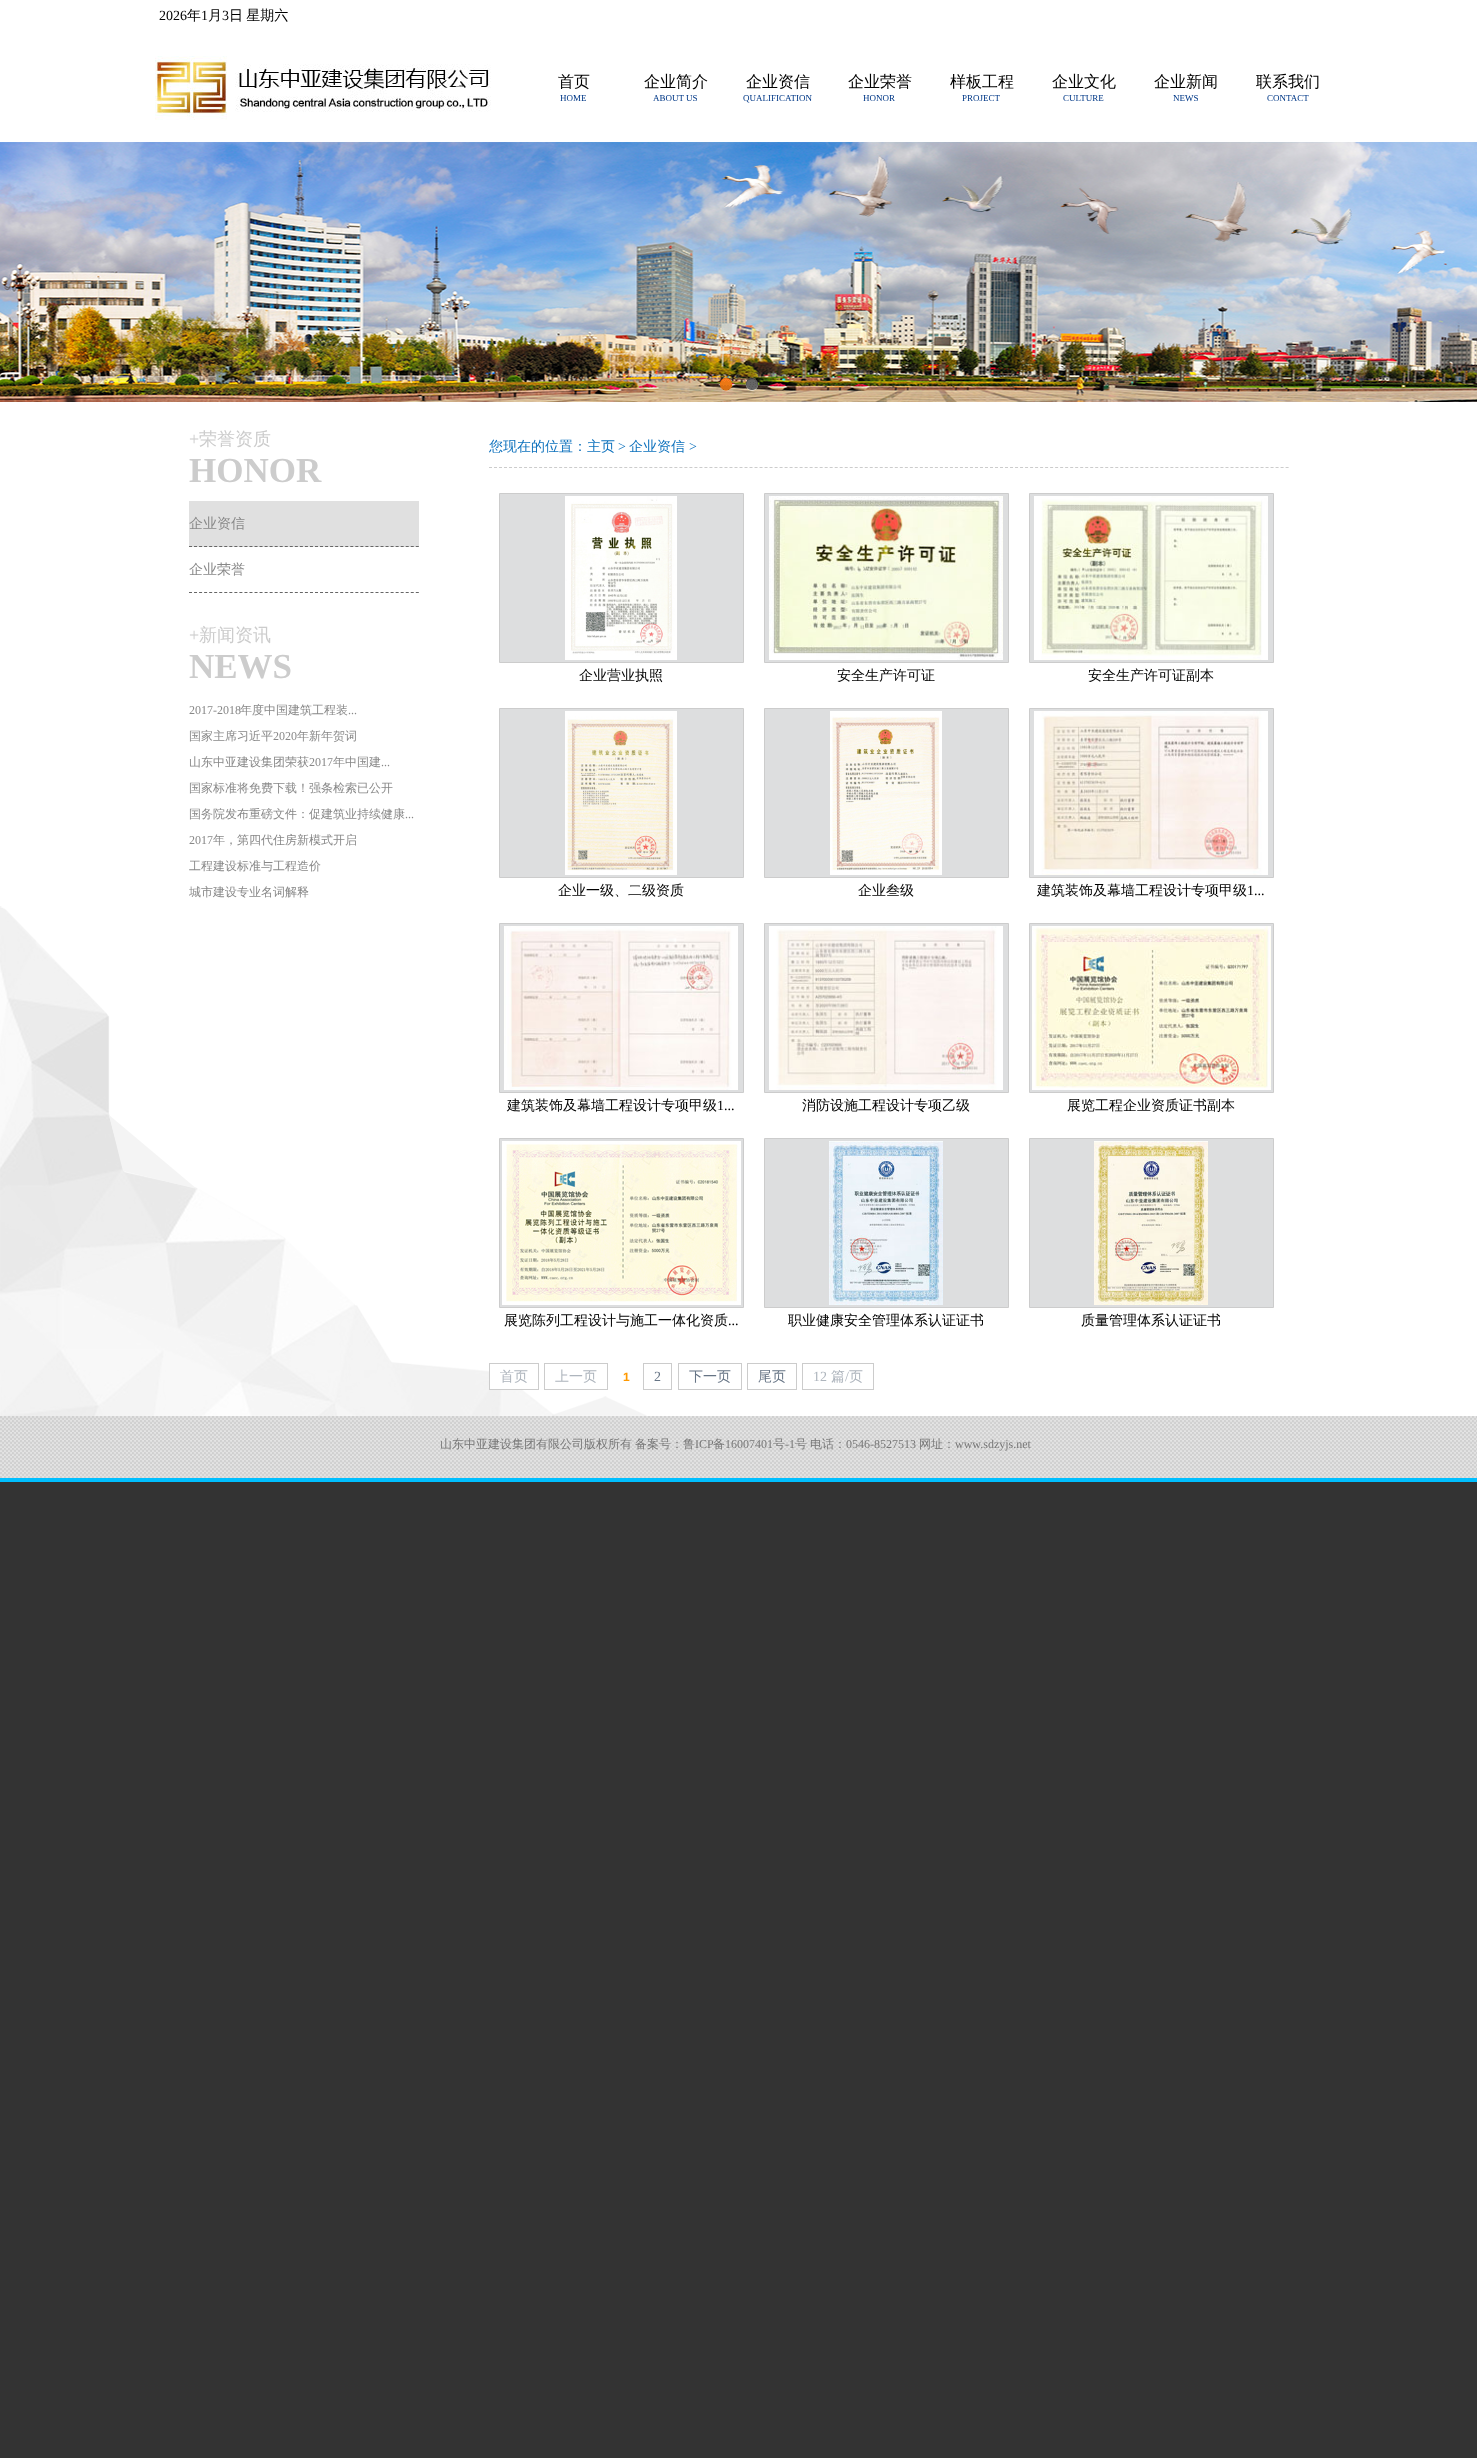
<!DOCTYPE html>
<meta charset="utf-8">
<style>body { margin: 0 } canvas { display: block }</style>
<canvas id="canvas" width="1477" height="2458"></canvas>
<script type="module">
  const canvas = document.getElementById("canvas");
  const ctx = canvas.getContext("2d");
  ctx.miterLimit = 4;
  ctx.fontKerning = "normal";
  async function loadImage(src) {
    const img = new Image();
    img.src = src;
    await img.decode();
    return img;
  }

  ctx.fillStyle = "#333333";
  ctx.fillRect(0, 0, 1477, 2458);
  ctx.fillStyle = "#ffffff";
  ctx.fillRect(0, 0, 1477, 142);
  ctx.font = "14px Liberation Serif";
  ctx.fillStyle = "#000000";
  ctx.fillText("2026", 159, 20);
  ctx.font = "500 14px WenQuanYi Zen Hei";
  ctx.fillText("年", 187, 20);
  ctx.font = "14px Liberation Serif";
  ctx.fillText("1", 201, 20);
  ctx.font = "500 14px WenQuanYi Zen Hei";
  ctx.fillText("月", 208, 20);
  ctx.font = "14px Liberation Serif";
  ctx.fillText("3", 222, 20);
  ctx.wordSpacing = "-1px";
  ctx.font = "500 14px WenQuanYi Zen Hei";
  ctx.fillText("日 星期六", 229, 20);
  ctx.drawImage(await loadImage("img1.png"), 155, 56, 336, 64);
  ctx.wordSpacing = "0px";
  ctx.font = "500 16px WenQuanYi Zen Hei";
  ctx.fillText("首页", 558, 87);
  ctx.font = "9px Liberation Serif";
  ctx.fillStyle = "#003887";
  ctx.fillText("HOME", 560, 101);
  ctx.font = "500 16px WenQuanYi Zen Hei";
  ctx.fillStyle = "#000000";
  ctx.fillText("企业简介", 644, 87);
  ctx.font = "9px Liberation Serif";
  ctx.fillStyle = "#003887";
  ctx.fillText("ABOUT US", 653, 101);
  ctx.font = "500 16px WenQuanYi Zen Hei";
  ctx.fillStyle = "#000000";
  ctx.fillText("企业资信", 746, 87);
  ctx.font = "9px Liberation Serif";
  ctx.fillStyle = "#003887";
  ctx.fillText("QUALIFICATION", 743, 101);
  ctx.font = "500 16px WenQuanYi Zen Hei";
  ctx.fillStyle = "#000000";
  ctx.fillText("企业荣誉", 848, 87);
  ctx.font = "9px Liberation Serif";
  ctx.fillStyle = "#003887";
  ctx.fillText("HONOR", 863, 101);
  ctx.font = "500 16px WenQuanYi Zen Hei";
  ctx.fillStyle = "#000000";
  ctx.fillText("样板工程", 950, 87);
  ctx.font = "9px Liberation Serif";
  ctx.fillStyle = "#003887";
  ctx.fillText("PROJECT", 962, 101);
  ctx.font = "500 16px WenQuanYi Zen Hei";
  ctx.fillStyle = "#000000";
  ctx.fillText("企业文化", 1052, 87);
  ctx.font = "9px Liberation Serif";
  ctx.fillStyle = "#003887";
  ctx.fillText("CULTURE", 1063, 101);
  ctx.font = "500 16px WenQuanYi Zen Hei";
  ctx.fillStyle = "#000000";
  ctx.fillText("企业新闻", 1154, 87);
  ctx.font = "9px Liberation Serif";
  ctx.fillStyle = "#003887";
  ctx.fillText("NEWS", 1173, 101);
  ctx.font = "500 16px WenQuanYi Zen Hei";
  ctx.fillStyle = "#000000";
  ctx.fillText("联系我们", 1256, 87);
  ctx.font = "9px Liberation Serif";
  ctx.fillStyle = "#003887";
  ctx.fillText("CONTACT", 1267, 101);
  ctx.drawImage(await loadImage("img2.png"), 0, 142, 1477, 260);
  ctx.drawImage(await loadImage("img3.png"), 720, 378, 14, 13);
  ctx.drawImage(await loadImage("img4.png"), 745, 378, 13, 13);
  ctx.fillStyle = "#ffffff";
  ctx.fillRect(0, 402, 1477, 1014);
  ctx.drawImage(await loadImage("img5.png"), 0, 906, 647, 510);
  ctx.font = "18px Liberation Serif";
  ctx.fillStyle = "#cccccc";
  ctx.fillText("+", 189, 445);
  ctx.font = "500 18px WenQuanYi Zen Hei";
  ctx.fillText("荣誉资质", 199, 445);
  ctx.font = "bold 35px Liberation Serif";
  ctx.fillText("HONOR", 189, 482);
  ctx.fillStyle = "#e0e0e0";
  ctx.fillRect(189, 501, 230, 46);
  ctx.beginPath();
  ctx.moveTo(189, 546.5);
  ctx.lineTo(419, 546.5);
  ctx.strokeStyle = "#666666";
  ctx.setLineDash([3, 2.04]);
  ctx.stroke();
  ctx.font = "500 14px WenQuanYi Zen Hei";
  ctx.fillStyle = "#888888";
  ctx.fillText("企业资信", 189, 528);
  ctx.beginPath();
  ctx.moveTo(189, 592.5);
  ctx.lineTo(419, 592.5);
  ctx.stroke();
  ctx.fillText("企业荣誉", 189, 574);
  ctx.font = "18px Liberation Serif";
  ctx.fillStyle = "#cccccc";
  ctx.fillText("+", 189, 641);
  ctx.font = "500 18px WenQuanYi Zen Hei";
  ctx.fillText("新闻资讯", 199, 641);
  ctx.font = "bold 35px Liberation Serif";
  ctx.fillText("NEWS", 189, 678);
  ctx.font = "12px Liberation Serif";
  ctx.fillStyle = "#888888";
  ctx.fillText("2017-2018", 189, 714);
  ctx.font = "500 12px WenQuanYi Zen Hei";
  ctx.fillText("年度中国建筑工程装", 240, 714);
  ctx.font = "12px Liberation Serif";
  ctx.fillText("...", 348, 714);
  ctx.font = "500 12px WenQuanYi Zen Hei";
  ctx.fillText("国家主席习近平", 189, 740);
  ctx.font = "12px Liberation Serif";
  ctx.fillText("2020", 273, 740);
  ctx.font = "500 12px WenQuanYi Zen Hei";
  ctx.fillText("年新年贺词", 297, 740);
  ctx.fillText("山东中亚建设集团荣获", 189, 766);
  ctx.font = "12px Liberation Serif";
  ctx.fillText("2017", 309, 766);
  ctx.font = "500 12px WenQuanYi Zen Hei";
  ctx.fillText("年中国建", 333, 766);
  ctx.font = "12px Liberation Serif";
  ctx.fillText("...", 381, 766);
  ctx.font = "500 12px WenQuanYi Zen Hei";
  ctx.fillText("国家标准将免费下载！强条检索已公开", 189, 792);
  ctx.fillText("国务院发布重磅文件：促建筑业持续健康", 189, 818);
  ctx.font = "12px Liberation Serif";
  ctx.fillText("...", 405, 818);
  ctx.fillText("2017", 189, 844);
  ctx.font = "500 12px WenQuanYi Zen Hei";
  ctx.fillText("年，第四代住房新模式开启", 213, 844);
  ctx.fillText("工程建设标准与工程造价", 189, 870);
  ctx.save();
  ctx.beginPath();
  ctx.rect(189, 697, 230, 208);
  ctx.clip();
  ctx.fillText("城市建设专业名词解释", 189, 896);
  ctx.restore();
  ctx.beginPath();
  ctx.moveTo(489, 467.5);
  ctx.lineTo(1289, 467.5);
  ctx.strokeStyle = "#cccccc";
  ctx.setLineDash([3, 2.01]);
  ctx.stroke();
  ctx.font = "500 14px WenQuanYi Zen Hei";
  ctx.fillStyle = "#0d71bd";
  ctx.fillText("您现在的位置：主页", 489, 451);
  ctx.font = "14px Liberation Serif";
  ctx.fillText(">", 618, 451);
  ctx.font = "500 14px WenQuanYi Zen Hei";
  ctx.fillText("企业资信", 629, 451);
  ctx.font = "14px Liberation Serif";
  ctx.fillText(">", 689, 451);
  ctx.fillStyle = "#dddedf";
  ctx.beginPath();
  ctx.rect(499.5, 493.5, 244, 169);
  ctx.fill();
  ctx.setLineDash([]);
  ctx.stroke();
  ctx.drawImage(await loadImage("img6.png"), 565, 496, 112, 164);
  ctx.font = "500 14px WenQuanYi Zen Hei";
  ctx.fillStyle = "#000000";
  ctx.fillText("企业营业执照", 579, 680);
  ctx.fillStyle = "#dddedf";
  ctx.beginPath();
  ctx.rect(764.5, 493.5, 244, 169);
  ctx.fill();
  ctx.stroke();
  ctx.drawImage(await loadImage("img7.png"), 769, 496, 234, 164);
  ctx.fillStyle = "#000000";
  ctx.fillText("安全生产许可证", 837, 680);
  ctx.fillStyle = "#dddedf";
  ctx.beginPath();
  ctx.rect(1029.5, 493.5, 244, 169);
  ctx.fill();
  ctx.stroke();
  ctx.drawImage(await loadImage("img8.png"), 1034, 496, 234, 164);
  ctx.fillStyle = "#000000";
  ctx.fillText("安全生产许可证副本", 1088, 680);
  ctx.fillStyle = "#dddedf";
  ctx.beginPath();
  ctx.rect(499.5, 708.5, 244, 169);
  ctx.fill();
  ctx.stroke();
  ctx.drawImage(await loadImage("img9.png"), 565, 711, 112, 164);
  ctx.fillStyle = "#000000";
  ctx.fillText("企业一级、二级资质", 558, 895);
  ctx.fillStyle = "#dddedf";
  ctx.beginPath();
  ctx.rect(764.5, 708.5, 244, 169);
  ctx.fill();
  ctx.stroke();
  ctx.drawImage(await loadImage("img10.png"), 830, 711, 112, 164);
  ctx.fillStyle = "#000000";
  ctx.fillText("企业叁级", 858, 895);
  ctx.fillStyle = "#dddedf";
  ctx.beginPath();
  ctx.rect(1029.5, 708.5, 244, 169);
  ctx.fill();
  ctx.stroke();
  ctx.drawImage(await loadImage("img11.png"), 1034, 711, 234, 164);
  ctx.fillStyle = "#000000";
  ctx.fillText("建筑装饰及幕墙工程设计专项甲级", 1037, 895);
  ctx.font = "14px Liberation Serif";
  ctx.fillText("1...", 1247, 895);
  ctx.fillStyle = "#dddedf";
  ctx.beginPath();
  ctx.rect(499.5, 923.5, 244, 169);
  ctx.fill();
  ctx.stroke();
  ctx.drawImage(await loadImage("img12.png"), 504, 926, 234, 164);
  ctx.font = "500 14px WenQuanYi Zen Hei";
  ctx.fillStyle = "#000000";
  ctx.fillText("建筑装饰及幕墙工程设计专项甲级", 507, 1110);
  ctx.font = "14px Liberation Serif";
  ctx.fillText("1...", 717, 1110);
  ctx.fillStyle = "#dddedf";
  ctx.beginPath();
  ctx.rect(764.5, 923.5, 244, 169);
  ctx.fill();
  ctx.stroke();
  ctx.drawImage(await loadImage("img13.png"), 769, 926, 234, 164);
  ctx.font = "500 14px WenQuanYi Zen Hei";
  ctx.fillStyle = "#000000";
  ctx.fillText("消防设施工程设计专项乙级", 802, 1110);
  ctx.fillStyle = "#dddedf";
  ctx.beginPath();
  ctx.rect(1029.5, 923.5, 244, 169);
  ctx.fill();
  ctx.stroke();
  ctx.drawImage(await loadImage("img14.png"), 1032, 926, 239, 164);
  ctx.fillStyle = "#000000";
  ctx.fillText("展览工程企业资质证书副本", 1067, 1110);
  ctx.fillStyle = "#dddedf";
  ctx.beginPath();
  ctx.rect(499.5, 1138.5, 244, 169);
  ctx.fill();
  ctx.stroke();
  ctx.drawImage(await loadImage("img15.png"), 502, 1141, 239, 164);
  ctx.fillStyle = "#000000";
  ctx.fillText("展览陈列工程设计与施工一体化资质", 504, 1325);
  ctx.font = "14px Liberation Serif";
  ctx.fillText("...", 728, 1325);
  ctx.fillStyle = "#dddedf";
  ctx.beginPath();
  ctx.rect(764.5, 1138.5, 244, 169);
  ctx.fill();
  ctx.stroke();
  ctx.drawImage(await loadImage("img16.png"), 829, 1141, 114, 164);
  ctx.font = "500 14px WenQuanYi Zen Hei";
  ctx.fillStyle = "#000000";
  ctx.fillText("职业健康安全管理体系认证证书", 788, 1325);
  ctx.fillStyle = "#dddedf";
  ctx.beginPath();
  ctx.rect(1029.5, 1138.5, 244, 169);
  ctx.fill();
  ctx.stroke();
  ctx.drawImage(await loadImage("img17.png"), 1094, 1141, 114, 164);
  ctx.fillStyle = "#000000";
  ctx.fillText("质量管理体系认证证书", 1081, 1325);
  ctx.fillStyle = "#ffffff";
  ctx.fillRect(490, 1371, 31, 18);
  ctx.strokeRect(489.5, 1363.5, 49, 26);
  ctx.fillStyle = "#aeb5bd";
  ctx.fillText("首页", 500, 1381);
  ctx.strokeRect(544.5, 1363.5, 63, 26);
  ctx.fillText("上一页", 555, 1381);
  ctx.font = "bold 12px Liberation Sans";
  ctx.fillStyle = "#ff9900";
  ctx.fillText("1", 623, 1381);
  ctx.strokeRect(643.5, 1363.5, 28, 26);
  ctx.font = "14px Liberation Serif";
  ctx.fillStyle = "#667485";
  ctx.fillText("2", 654, 1381);
  ctx.strokeRect(678.5, 1363.5, 63, 26);
  ctx.font = "500 14px WenQuanYi Zen Hei";
  ctx.fillText("下一页", 689, 1381);
  ctx.strokeRect(747.5, 1363.5, 49, 26);
  ctx.fillText("尾页", 758, 1381);
  ctx.strokeRect(802.5, 1363.5, 71, 26);
  ctx.font = "14px Liberation Serif";
  ctx.fillStyle = "#aeb5bd";
  ctx.fillText("12", 813, 1381);
  ctx.font = "500 14px WenQuanYi Zen Hei";
  ctx.fillText("篇", 831, 1381);
  ctx.font = "14px Liberation Serif";
  ctx.fillText("/", 845, 1381);
  ctx.font = "500 14px WenQuanYi Zen Hei";
  ctx.fillText("页", 849, 1381);
  ctx.drawImage(await loadImage("img18.png"), 0, 1416, 1477, 62);
  ctx.fillStyle = "#00bfff";
  ctx.fillRect(0, 1478, 1477, 4);
  ctx.font = "500 12px WenQuanYi Zen Hei";
  ctx.fillStyle = "#777777";
  ctx.fillText("山东中亚建设集团有限公司版权所有", 440, 1448);
  ctx.fillText("备案号：鲁", 635, 1448);
  ctx.font = "12px Liberation Serif";
  ctx.fillText("ICP", 695, 1448);
  ctx.font = "500 12px WenQuanYi Zen Hei";
  ctx.fillText("备", 713, 1448);
  ctx.font = "12px Liberation Serif";
  ctx.fillText("16007401", 725, 1448);
  ctx.font = "500 12px WenQuanYi Zen Hei";
  ctx.fillText("号", 773, 1448);
  ctx.font = "12px Liberation Serif";
  ctx.fillText("-1", 785, 1448);
  ctx.font = "500 12px WenQuanYi Zen Hei";
  ctx.fillText("号", 795, 1448);
  ctx.fillText("电话：", 810, 1448);
  ctx.font = "12px Liberation Serif";
  ctx.fillText("0546-8527513", 846, 1448);
  ctx.font = "500 12px WenQuanYi Zen Hei";
  ctx.fillText("网址：", 919, 1448);
  ctx.font = "12px Liberation Serif";
  ctx.fillText("www.sdzyjs.net", 955, 1448);
</script>
